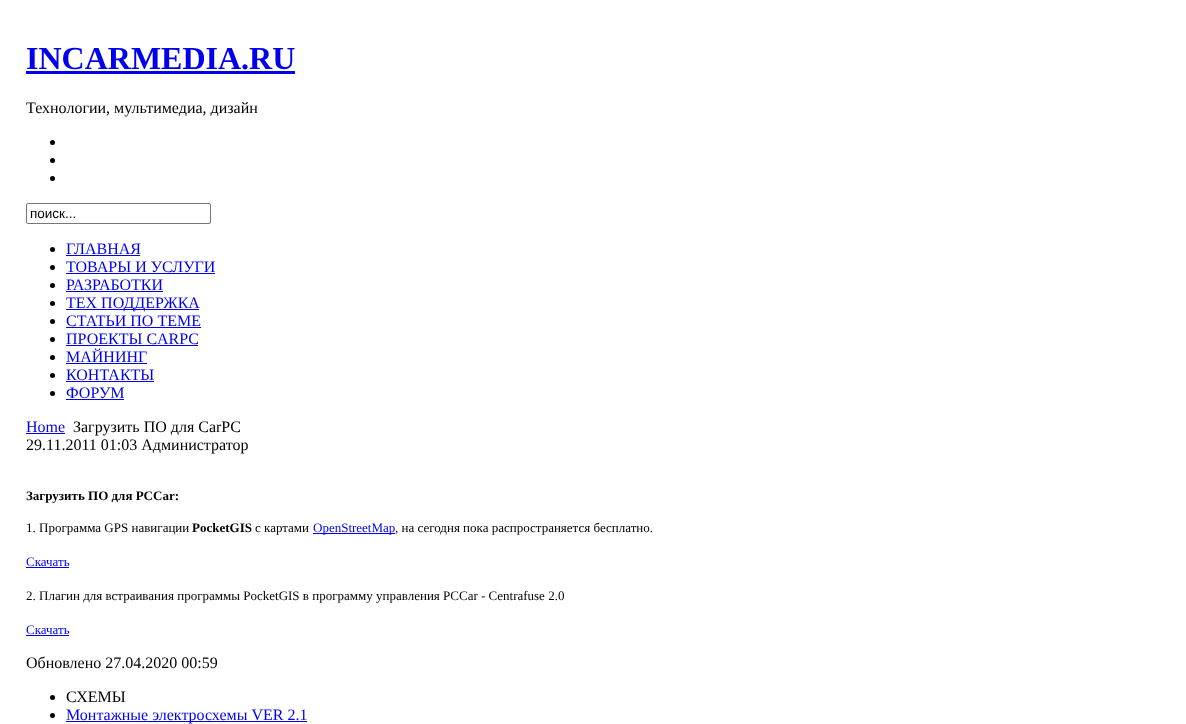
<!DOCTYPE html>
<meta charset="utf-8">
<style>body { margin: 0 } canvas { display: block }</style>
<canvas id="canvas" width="1186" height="724"></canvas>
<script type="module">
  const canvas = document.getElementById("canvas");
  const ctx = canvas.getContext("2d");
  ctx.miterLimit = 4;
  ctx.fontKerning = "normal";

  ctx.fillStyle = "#ffffff";
  ctx.fillRect(0, 0, 1186, 724);
  ctx.font = "bold 32px Liberation Serif";
  ctx.fillStyle = "#0000ee";
  ctx.fillText("INCARMEDIA.RU", 26, 69);
  ctx.fillRect(26, 71, 269, 3);
  ctx.font = "16px Liberation Serif";
  ctx.fillStyle = "#000000";
  ctx.fillText("Технологии, мультимедиа, дизайн", 26, 113);
  ctx.beginPath();
  ctx.arc(52.5, 142.5, 2.5, 0, Math.PI * 2);
  ctx.fill();
  ctx.beginPath();
  ctx.arc(52.5, 160.5, 2.5, 0, Math.PI * 2);
  ctx.fill();
  ctx.beginPath();
  ctx.arc(52.5, 178.5, 2.5, 0, Math.PI * 2);
  ctx.fill();
  ctx.beginPath();
  ctx.roundRect(26.5, 203.5, 184, 20, 1.5);
  ctx.strokeStyle = "#767676";
  ctx.stroke();
  ctx.font = "13.5px Liberation Sans";
  ctx.fillText("поиск...", 30, 218);
  ctx.beginPath();
  ctx.arc(52.5, 249.5, 2.5, 0, Math.PI * 2);
  ctx.fill();
  ctx.font = "16px Liberation Serif";
  ctx.fillStyle = "#0000ee";
  ctx.fillText("ГЛАВНАЯ", 66, 254);
  ctx.fillRect(66, 255, 74, 1);
  ctx.fillStyle = "#000000";
  ctx.beginPath();
  ctx.arc(52.5, 267.5, 2.5, 0, Math.PI * 2);
  ctx.fill();
  ctx.fillStyle = "#0000ee";
  ctx.fillText("ТОВАРЫ И УСЛУГИ", 66, 272);
  ctx.fillRect(66, 273, 149, 1);
  ctx.fillStyle = "#000000";
  ctx.beginPath();
  ctx.arc(52.5, 285.5, 2.5, 0, Math.PI * 2);
  ctx.fill();
  ctx.fillStyle = "#0000ee";
  ctx.fillText("РАЗРАБОТКИ", 66, 290);
  ctx.fillRect(66, 291, 97, 1);
  ctx.fillStyle = "#000000";
  ctx.beginPath();
  ctx.arc(52.5, 303.5, 2.5, 0, Math.PI * 2);
  ctx.fill();
  ctx.fillStyle = "#0000ee";
  ctx.fillRect(66, 309, 133, 1);
  ctx.fillText("ТЕХ ПОДДЕРЖКА", 66, 308);
  ctx.fillStyle = "#000000";
  ctx.beginPath();
  ctx.arc(52.5, 321.5, 2.5, 0, Math.PI * 2);
  ctx.fill();
  ctx.fillStyle = "#0000ee";
  ctx.fillText("СТАТЬИ ПО ТЕМЕ", 66, 326);
  ctx.fillRect(66, 327, 135, 1);
  ctx.fillStyle = "#000000";
  ctx.beginPath();
  ctx.arc(52.5, 339.5, 2.5, 0, Math.PI * 2);
  ctx.fill();
  ctx.fillStyle = "#0000ee";
  ctx.fillText("ПРОЕКТЫ CARPC", 66, 344);
  ctx.fillRect(66, 345, 132, 1);
  ctx.fillStyle = "#000000";
  ctx.beginPath();
  ctx.arc(52.5, 357.5, 2.5, 0, Math.PI * 2);
  ctx.fill();
  ctx.fillStyle = "#0000ee";
  ctx.fillText("МАЙНИНГ", 66, 362);
  ctx.fillRect(66, 363, 81, 1);
  ctx.fillStyle = "#000000";
  ctx.beginPath();
  ctx.arc(52.5, 375.5, 2.5, 0, Math.PI * 2);
  ctx.fill();
  ctx.fillStyle = "#0000ee";
  ctx.fillText("КОНТАКТЫ", 66, 380);
  ctx.fillRect(66, 381, 88, 1);
  ctx.fillStyle = "#000000";
  ctx.beginPath();
  ctx.arc(52.5, 393.5, 2.5, 0, Math.PI * 2);
  ctx.fill();
  ctx.fillStyle = "#0000ee";
  ctx.fillText("ФОРУМ", 66, 398);
  ctx.fillRect(66, 399, 58, 1);
  ctx.fillText("Home", 26, 432);
  ctx.fillRect(26, 433, 39, 1);
  ctx.fillStyle = "#000000";
  ctx.fillText("Загрузить ПО для CarPC", 73, 432);
  ctx.fillText("29.11.2011 01:03 Администратор", 26, 450);
  ctx.font = "bold 13px Liberation Serif";
  ctx.fillText("Загрузить ПО для PCCar:", 26, 500);
  ctx.font = "13px Liberation Serif";
  ctx.fillText("1. Программа GPS навигации", 26, 532);
  ctx.font = "bold 13px Liberation Serif";
  ctx.fillText("PocketGIS", 192, 532);
  ctx.font = "13px Liberation Serif";
  ctx.fillText("с картами", 255, 532);
  ctx.fillStyle = "#0000ee";
  ctx.fillRect(313, 533, 82, 1);
  ctx.fillText("OpenStreetMap", 313, 532);
  ctx.fillStyle = "#000000";
  ctx.fillText(", на сегодня пока распространяется бесплатно.", 395, 532);
  ctx.fillStyle = "#0000ee";
  ctx.fillText("Скачать", 26, 566);
  ctx.fillRect(26, 567, 43, 1);
  ctx.fillStyle = "#000000";
  ctx.fillText("2. Плагин для встраивания программы PocketGIS в программу управления PCCar - Centrafuse 2.0", 26, 600);
  ctx.fillStyle = "#0000ee";
  ctx.fillText("Скачать", 26, 634);
  ctx.fillRect(26, 635, 43, 1);
  ctx.font = "16px Liberation Serif";
  ctx.fillStyle = "#000000";
  ctx.fillText("Обновлено 27.04.2020 00:59", 26, 668);
  ctx.beginPath();
  ctx.arc(52.5, 697.5, 2.5, 0, Math.PI * 2);
  ctx.fill();
  ctx.fillText("СХЕМЫ", 66, 702);
  ctx.beginPath();
  ctx.arc(52.5, 715.5, 2.5, 0, Math.PI * 2);
  ctx.fill();
  ctx.fillStyle = "#0000ee";
  ctx.fillRect(66, 721, 241, 1);
  ctx.fillText("Монтажные электросхемы VER 2.1", 66, 720);
</script>
